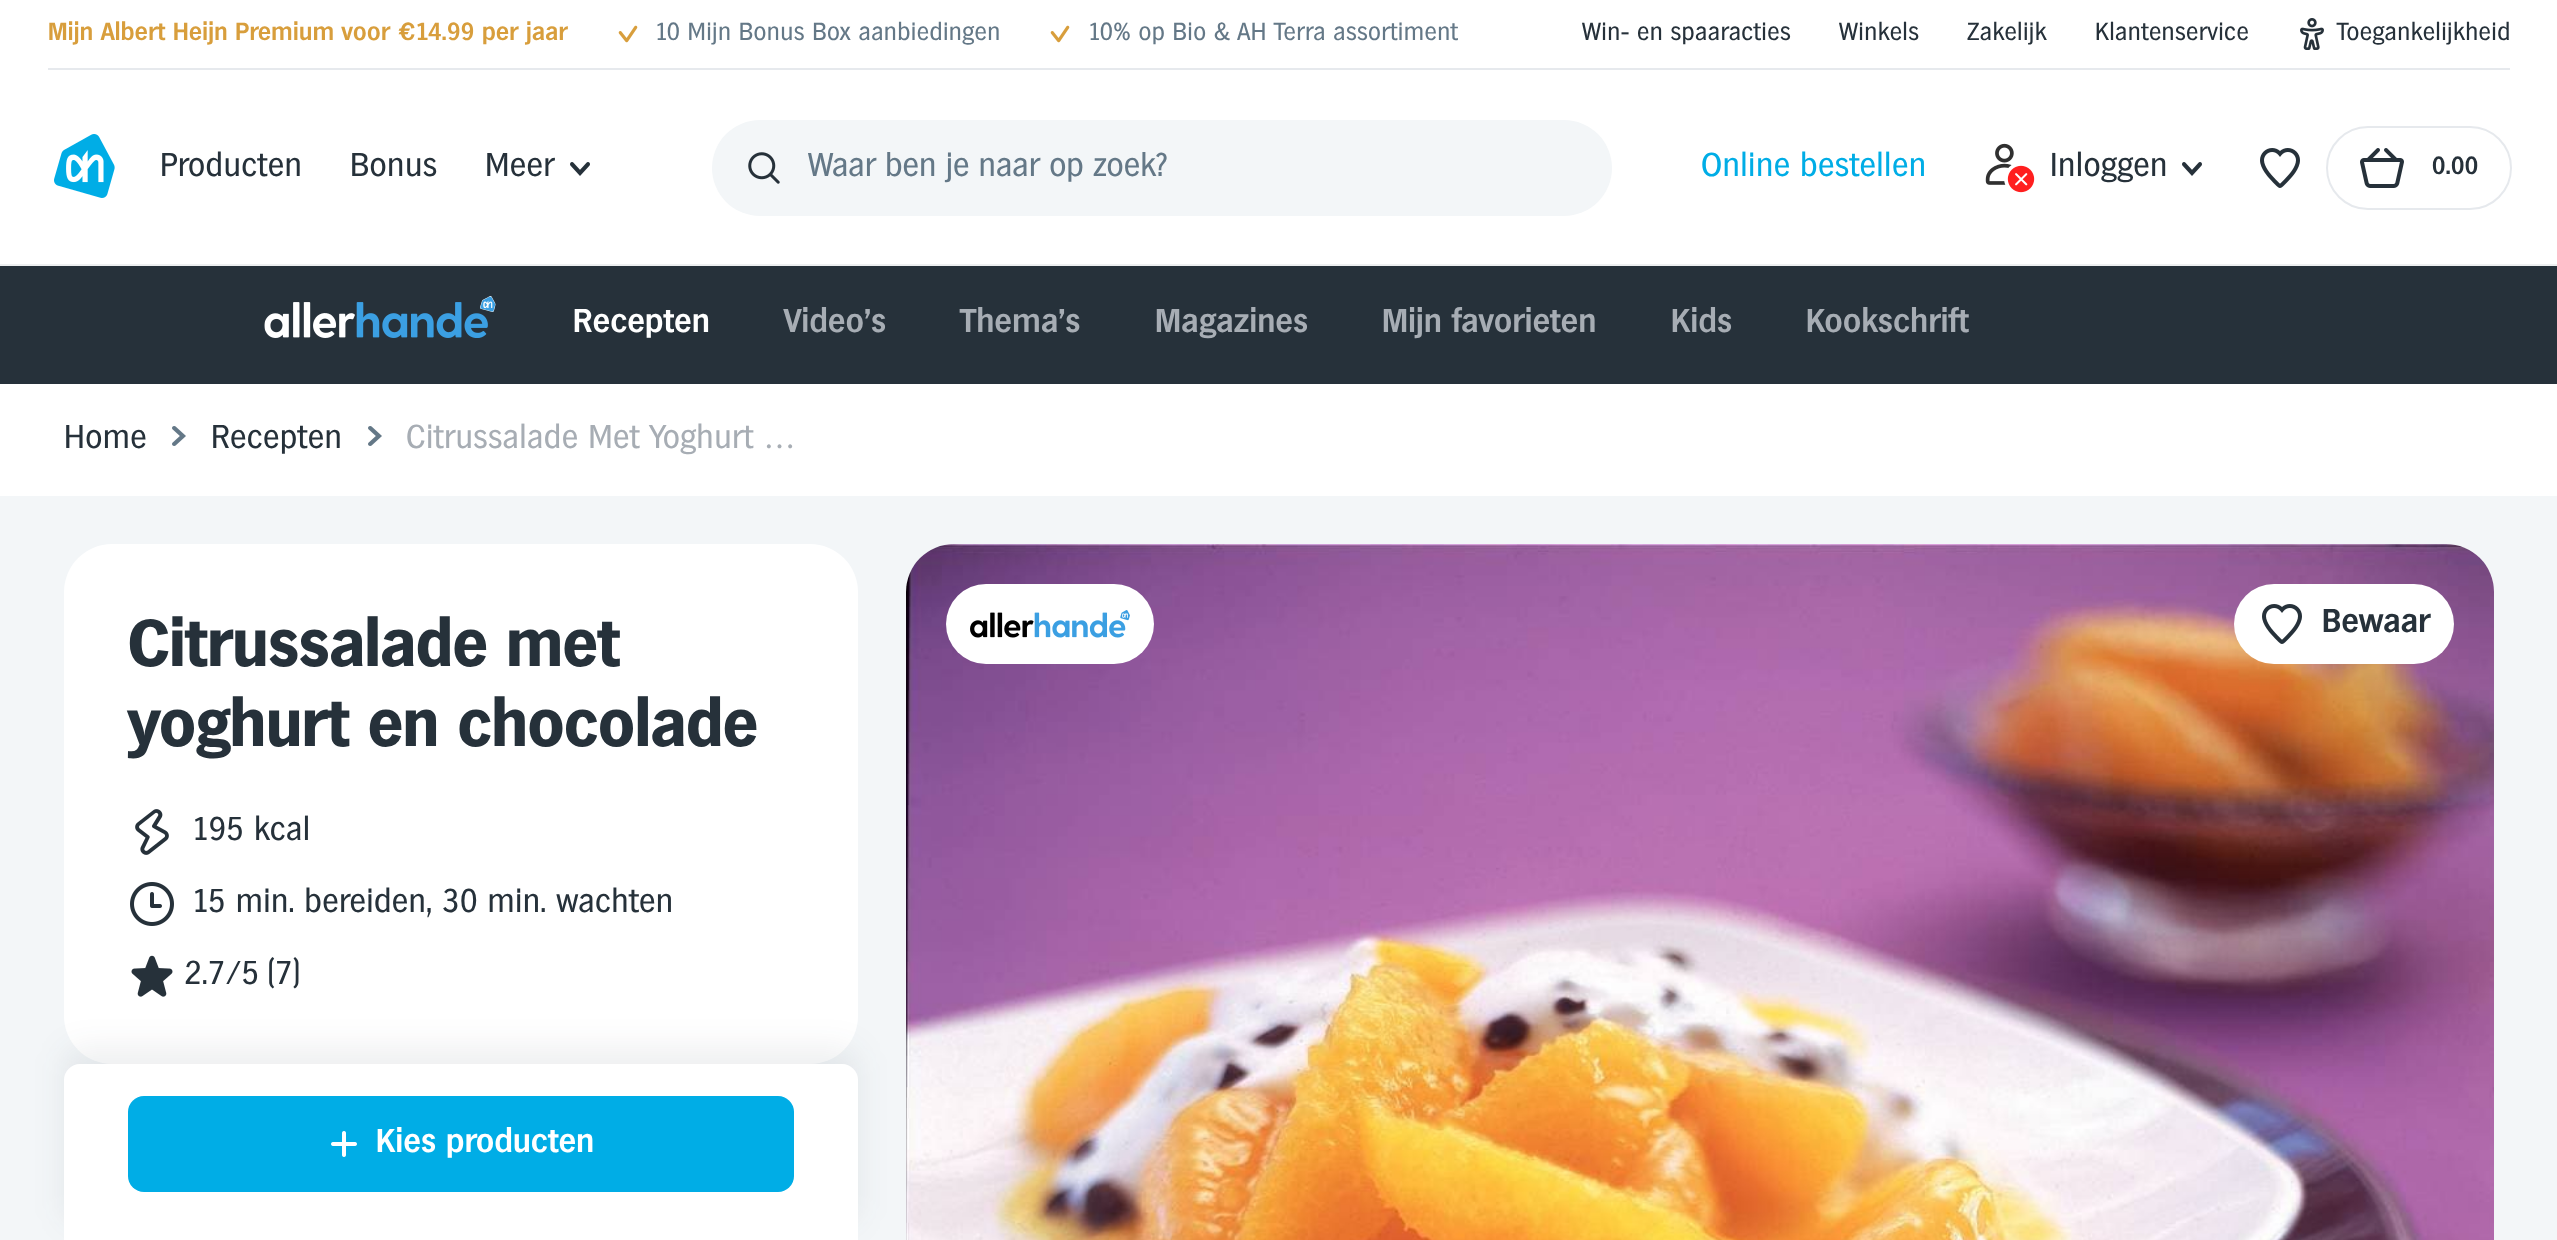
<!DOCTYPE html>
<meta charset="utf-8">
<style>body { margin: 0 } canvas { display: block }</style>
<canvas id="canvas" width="2557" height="1240"></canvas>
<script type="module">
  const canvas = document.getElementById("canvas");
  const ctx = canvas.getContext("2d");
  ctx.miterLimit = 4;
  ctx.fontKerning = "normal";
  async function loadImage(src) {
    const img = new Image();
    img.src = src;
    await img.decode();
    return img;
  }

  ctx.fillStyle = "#ffffff";
  ctx.fillRect(0, 0, 2557, 1240);
  ctx.fillStyle = "#e6e9ed";
  ctx.fillRect(48, 68, 2462, 2);
  ctx.letterSpacing = "0.4px";
  ctx.font = "bold 24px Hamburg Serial";
  ctx.fillStyle = "#d89e3c";
  ctx.fillText("Mijn Albert Heijn Premium voor €14.99 per jaar", 48, 40);
  ctx.drawImage(await loadImage("img1.png"), 618, 25, 20, 18);
  ctx.font = "24px Hamburg Serial";
  ctx.fillStyle = "#647887";
  ctx.fillText("10 Mijn Bonus Box aanbiedingen", 655, 40);
  ctx.drawImage(await loadImage("img1.png"), 1050, 25, 20, 18);
  ctx.fillText("10% op Bio & AH Terra assortiment", 1088, 40);
  ctx.fillStyle = "#26313a";
  ctx.fillText("Win- en spaaracties", 1582, 40);
  ctx.fillText("Winkels", 1839, 40);
  ctx.fillText("Zakelijk", 1967, 40);
  ctx.fillText("Klantenservice", 2095, 40);
  ctx.drawImage(await loadImage("img2.png"), 2300, 18, 24, 32);
  ctx.fillText("Toegankelijkheid", 2337, 40);
  ctx.drawImage(await loadImage("img3.png"), 54, 134, 61, 64);
  ctx.font = "32px Hamburg Serial";
  ctx.fillText("Producten", 160, 176);
  ctx.fillText("Bonus", 350, 176);
  ctx.fillText("Meer", 485, 176);
  ctx.drawImage(await loadImage("img4.png"), 570, 162, 20, 14);
  ctx.fillStyle = "#f3f6f8";
  ctx.beginPath();
  ctx.roundRect(712, 120, 900, 96, 48);
  ctx.fill();
  ctx.drawImage(await loadImage("img5.png"), 748, 152, 32, 32);
  ctx.save();
  ctx.beginPath();
  ctx.rect(808, 152, 756, 32);
  ctx.clip();
  ctx.letterSpacing = "0px";
  ctx.fillStyle = "#647887";
  ctx.fillText("Waar ben je naar op zoek?", 808, 176);
  ctx.restore();
  ctx.fillStyle = "#00ade6";
  ctx.fillText("Online bestellen", 1701, 176);
  ctx.drawImage(await loadImage("img6.png"), 1985, 143, 50, 50);
  ctx.fillStyle = "#26313a";
  ctx.fillText("Inloggen", 2050, 176);
  ctx.drawImage(await loadImage("img4.png"), 2182, 162, 20, 14);
  ctx.drawImage(await loadImage("img7.png"), 2260, 148, 40, 40);
  ctx.beginPath();
  ctx.roundRect(2327, 127, 184, 82, 41);
  ctx.strokeStyle = "#e6e9ed";
  ctx.lineWidth = 2;
  ctx.stroke();
  ctx.drawImage(await loadImage("img8.png"), 2360, 148, 44, 40);
  ctx.font = "bold 24px Hamburg Serial";
  ctx.fillText("0.00", 2432, 174);
  ctx.fillStyle = "#edeff0";
  ctx.fillRect(0, 264, 2557, 2);
  ctx.fillStyle = "#26313a";
  ctx.fillRect(0, 266, 2557, 118);
  ctx.drawImage(await loadImage("img9.png"), 264, 296, 232, 42);
  ctx.font = "bold 32px Hamburg Serial";
  ctx.fillStyle = "#ffffff";
  ctx.fillText("Recepten", 573, 332);
  ctx.fillStyle = "#a7adb4";
  ctx.fillText("Video's", 784, 332);
  ctx.fillText("Thema's", 960, 332);
  ctx.fillText("Magazines", 1155, 332);
  ctx.fillText("Mijn favorieten", 1382, 332);
  ctx.fillText("Kids", 1671, 332);
  ctx.fillText("Kookschrift", 1806, 332);
  ctx.font = "32px Hamburg Serial";
  ctx.fillStyle = "#26313a";
  ctx.fillText("Home", 64, 448);
  ctx.drawImage(await loadImage("img10.png"), 172, 426, 14, 20);
  ctx.fillText("Recepten", 211, 448);
  ctx.drawImage(await loadImage("img10.png"), 368, 426, 14, 20);
  ctx.fillStyle = "#a7adb4";
  ctx.fillText("Citrussalade Met Yoghurt …", 406, 448);
  ctx.fillStyle = "#f3f6f8";
  ctx.fillRect(0, 496, 2557, 744);
  ctx.fillStyle = "#ffffff";
  ctx.beginPath();
  ctx.roundRect(64, 544, 794, 520, 48);
  ctx.fill();
  ctx.letterSpacing = "0.1px";
  ctx.font = "bold 64px 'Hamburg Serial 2'";
  ctx.fillStyle = "#26313a";
  ctx.fillText("Citrussalade met", 128, 666);
  ctx.fillText("yoghurt en chocolade", 128, 746);
  ctx.drawImage(await loadImage("img11.png"), 135, 809, 34, 46);
  ctx.letterSpacing = "0.4px";
  ctx.font = "32px Hamburg Serial";
  ctx.fillText("195 kcal", 192, 840);
  ctx.drawImage(await loadImage("img12.png"), 130, 882, 44, 44);
  ctx.fillText("15 min. bereiden, 30 min. wachten", 192, 912);
  ctx.drawImage(await loadImage("img13.png"), 131, 955, 42, 42);
  ctx.fillText("2.7/5", 184, 984);
  ctx.fillText("(7)", 267, 984);
  ctx.drawImage(await loadImage("img15.png"), 906, 544, 1588, 696);
  ctx.fillStyle = "rgba(38, 49, 58, 0.08)";
  ctx.filter = "blur(16px)";
  ctx.beginPath();
  ctx.roundRect(64, 1048, 794, 176, 16);
  ctx.fill();
  ctx.filter = "none";
  ctx.fillStyle = "#ffffff";
  ctx.beginPath();
  ctx.roundRect(64, 1064, 794, 176, [16, 16, 0, 0]);
  ctx.fill();
  ctx.fillStyle = "#00ade6";
  ctx.beginPath();
  ctx.roundRect(128, 1096, 666, 96, 16);
  ctx.fill();
  ctx.drawImage(await loadImage("img14.png"), 331, 1131, 26, 26);
  ctx.font = "bold 32px Hamburg Serial";
  ctx.fillStyle = "#ffffff";
  ctx.fillText("Kies producten", 376, 1152);
  ctx.beginPath();
  ctx.roundRect(946, 584, 208, 80, 40);
  ctx.fill();
  ctx.drawImage(await loadImage("img16.png"), 970, 610, 160, 28);
  ctx.beginPath();
  ctx.roundRect(2234, 584, 220, 80, 40);
  ctx.fill();
  ctx.drawImage(await loadImage("img7.png"), 2262, 604, 40, 40);
  ctx.fillStyle = "#26313a";
  ctx.fillText("Bewaar", 2322, 632);
</script>
